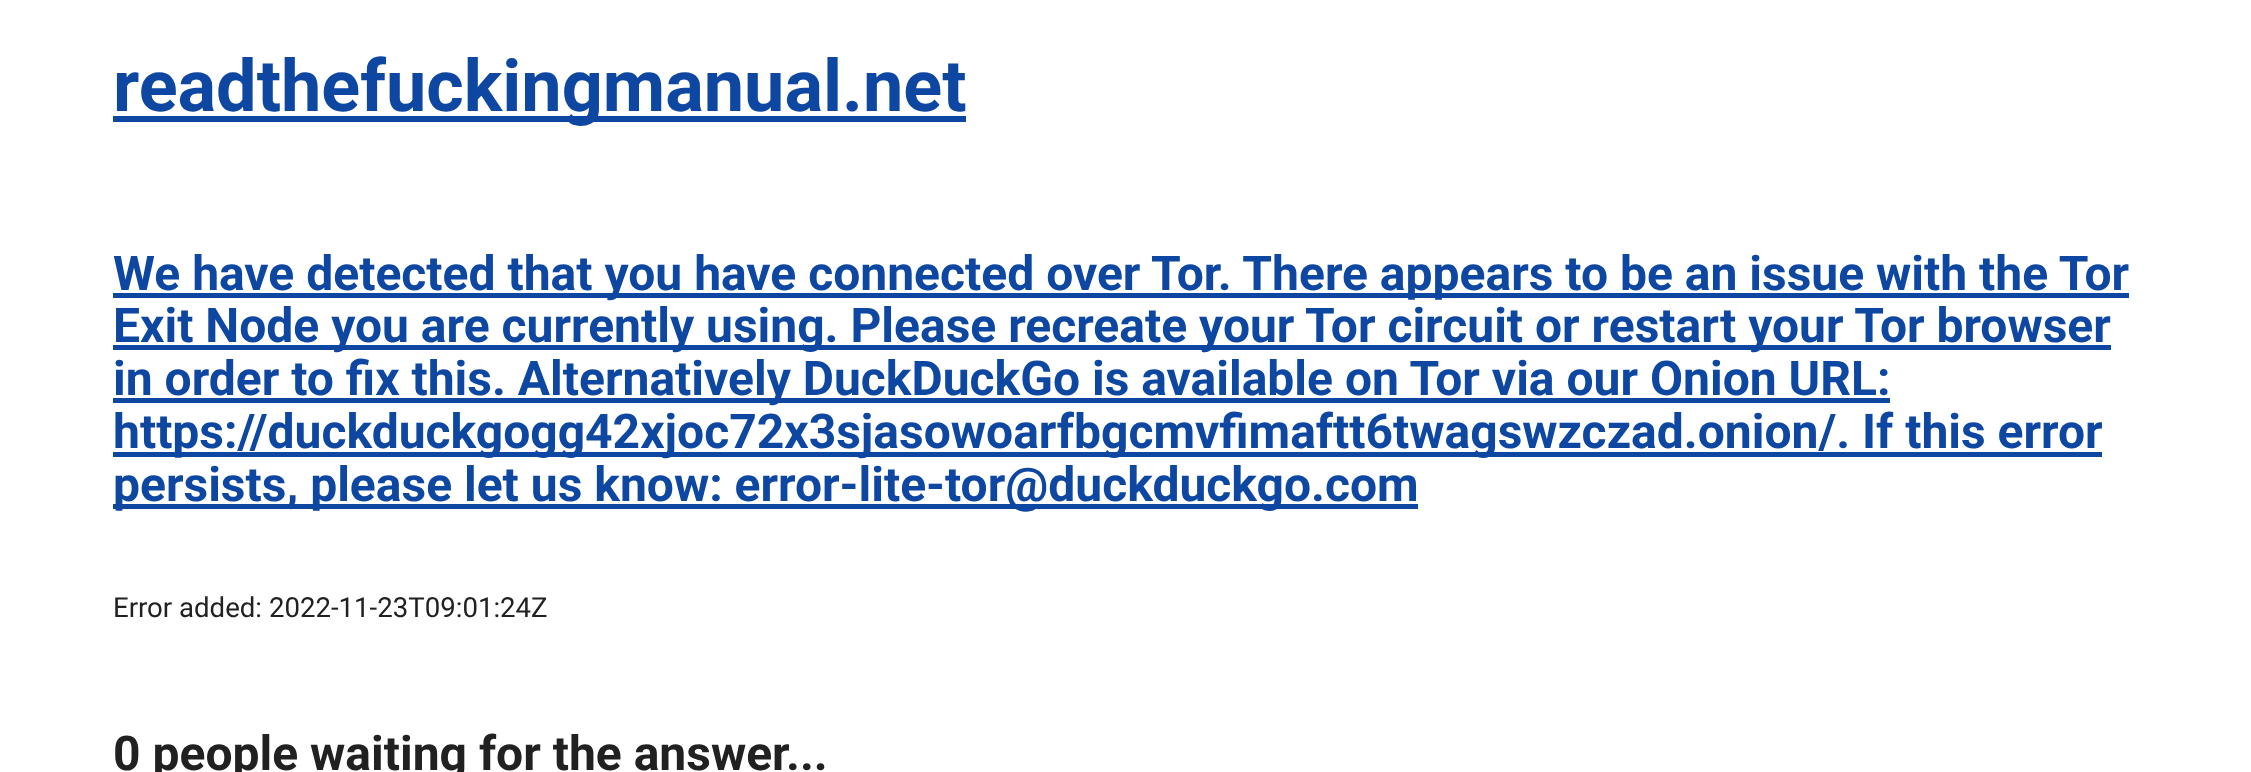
<!DOCTYPE html>
<meta charset="utf-8">
<style>body { margin: 0 } canvas { display: block }</style>
<canvas id="canvas" width="2251" height="772"></canvas>
<script type="module">
  const canvas = document.getElementById("canvas");
  const ctx = canvas.getContext("2d");
  ctx.miterLimit = 4;
  ctx.fontKerning = "normal";

  ctx.fillStyle = "#ffffff";
  ctx.fillRect(0, 0, 2251, 772);
  ctx.fillStyle = "#0d47a1";
  ctx.fillRect(113, 116, 853, 6);
  ctx.font = "bold 72px Roboto";
  ctx.fillText("readthefuckingmanual.net", 113, 111);
  ctx.fillRect(113, 293, 2016, 5);
  ctx.font = "bold 48px Roboto";
  ctx.fillText("We have detected that you have connected over Tor. There appears to be an issue with the Tor", 113, 290);
  ctx.fillRect(113, 345, 1998, 5);
  ctx.fillText("Exit Node you are currently using. Please recreate your Tor circuit or restart your Tor browser", 113, 342);
  ctx.fillRect(113, 398, 1777, 5);
  ctx.fillText("in order to fix this. Alternatively DuckDuckGo is available on Tor via our Onion URL:", 113, 395);
  ctx.fillRect(113, 452, 1989, 5);
  ctx.fillText("https://duckduckgogg42xjoc72x3sjasowoarfbgcmvfimaftt6twagswzczad.onion/. If this error", 113, 448);
  ctx.fillRect(113, 504, 1305, 5);
  ctx.fillText("persists, please let us know: error-lite-tor@duckduckgo.com", 113, 501);
  ctx.font = "27.6px Roboto";
  ctx.fillStyle = "#212121";
  ctx.fillText("Error added: 2022-11-23T09:01:24Z", 113, 617);
  ctx.font = "bold 48px Roboto";
  ctx.fillText("0 people waiting for the answer...", 113, 770);
</script>
